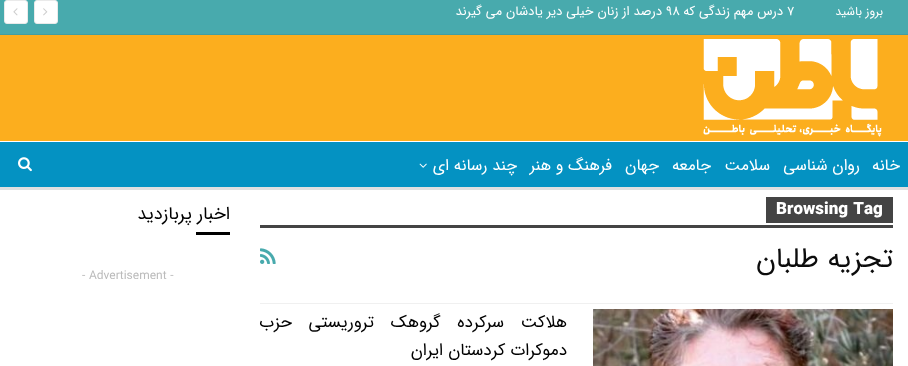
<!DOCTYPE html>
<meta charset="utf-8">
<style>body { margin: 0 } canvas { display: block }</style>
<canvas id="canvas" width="908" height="366"></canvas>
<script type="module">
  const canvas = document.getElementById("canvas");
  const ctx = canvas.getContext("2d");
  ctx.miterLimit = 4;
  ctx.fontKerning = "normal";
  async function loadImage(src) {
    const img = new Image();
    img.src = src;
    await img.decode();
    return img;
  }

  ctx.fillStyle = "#ffffff";
  ctx.fillRect(0, 0, 908, 366);
  ctx.fillStyle = "#fcae1e";
  ctx.fillRect(0, 35, 908, 106);
  ctx.fillStyle = "#48aaad";
  ctx.fillRect(0, 0, 908, 34);
  ctx.fillStyle = "#439ea1";
  ctx.fillRect(0, 34, 908, 1);
  ctx.direction = "rtl";
  ctx.font = "12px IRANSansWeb";
  ctx.fillStyle = "#ffffff";
  ctx.fillText("بروز باشید", 883, 15);
  ctx.direction = "ltr";
  ctx.font = "13px IRANSansWeb";
  ctx.fillText("۷", 787, 15);
  ctx.direction = "rtl";
  ctx.fillText("درس مهم زندگی که", 783, 15);
  ctx.direction = "ltr";
  ctx.fillText("۹۸", 666, 15);
  ctx.direction = "rtl";
  ctx.fillText("درصد از زنان خیلی دیر یادشان می گیرند", 662, 15);
  ctx.beginPath();
  ctx.roundRect(34.5, 0.5, 23, 23, 2.5);
  ctx.fill();
  ctx.strokeStyle = "#eaeaea";
  ctx.stroke();
  ctx.drawImage(await loadImage("img1.png"), 43, 8, 5, 8);
  ctx.beginPath();
  ctx.roundRect(4.5, 0.5, 23, 23, 2.5);
  ctx.fill();
  ctx.stroke();
  ctx.drawImage(await loadImage("img2.png"), 13, 8, 5, 8);
  ctx.drawImage(await loadImage("img3.png"), 703, 39, 179, 98);
  ctx.fillStyle = "#0492c2";
  ctx.fillRect(0, 142, 908, 45);
  ctx.fillStyle = "#e0e0e0";
  ctx.fillRect(0, 187, 908, 3);
  ctx.font = "16px IRANSansWeb";
  ctx.fillStyle = "#ffffff";
  ctx.fillText("خانه", 900, 170);
  ctx.fillText("روان شناسی", 860, 170);
  ctx.fillText("سلامت", 770, 170);
  ctx.fillText("جامعه", 711, 170);
  ctx.fillText("جهان", 659, 170);
  ctx.fillText("فرهنگ و هنر", 612, 170);
  ctx.fillText("چند رسانه ای", 517, 170);
  ctx.drawImage(await loadImage("img4.png"), 419, 163, 8, 5);
  ctx.drawImage(await loadImage("img5.png"), 18, 157, 14, 15);
  ctx.fillStyle = "#f0f0f0";
  ctx.fillRect(260, 303, 633, 1);
  ctx.fillStyle = "#444444";
  ctx.fillRect(766, 197, 127, 26);
  ctx.direction = "ltr";
  ctx.font = "900 17px IRANSansWeb";
  ctx.fillStyle = "#ffffff";
  ctx.fillText("Browsing Tag", 776, 214);
  ctx.fillStyle = "#444444";
  ctx.fillRect(260, 225, 633, 3);
  ctx.direction = "rtl";
  ctx.font = "28px IRANSansWeb";
  ctx.fillStyle = "#0c0c0c";
  ctx.fillText("تجزیه طلبان", 893, 267);
  ctx.drawImage(await loadImage("img6.png"), 260, 248, 16, 16);
  ctx.drawImage(await loadImage("img7.png"), 593, 309, 300, 57);
  ctx.wordSpacing = "11.5px";
  ctx.font = "17px IRANSansWeb";
  ctx.fillStyle = "#000000";
  ctx.fillText("هلاکت سرکرده گروهک تروریستی حزب", 567, 327);
  ctx.wordSpacing = "0px";
  ctx.fillText("دموکرات کردستان ایران", 567, 355);
  ctx.font = "18px IRANSansWeb";
  ctx.fillText("اخبار پربازدید", 230, 219);
  ctx.fillRect(196, 232, 34, 3);
  ctx.direction = "ltr";
  ctx.font = "12px IRANSansWeb";
  ctx.fillStyle = "#bbbbbb";
  ctx.fillText("- Advertisement -", 82, 279);
</script>
